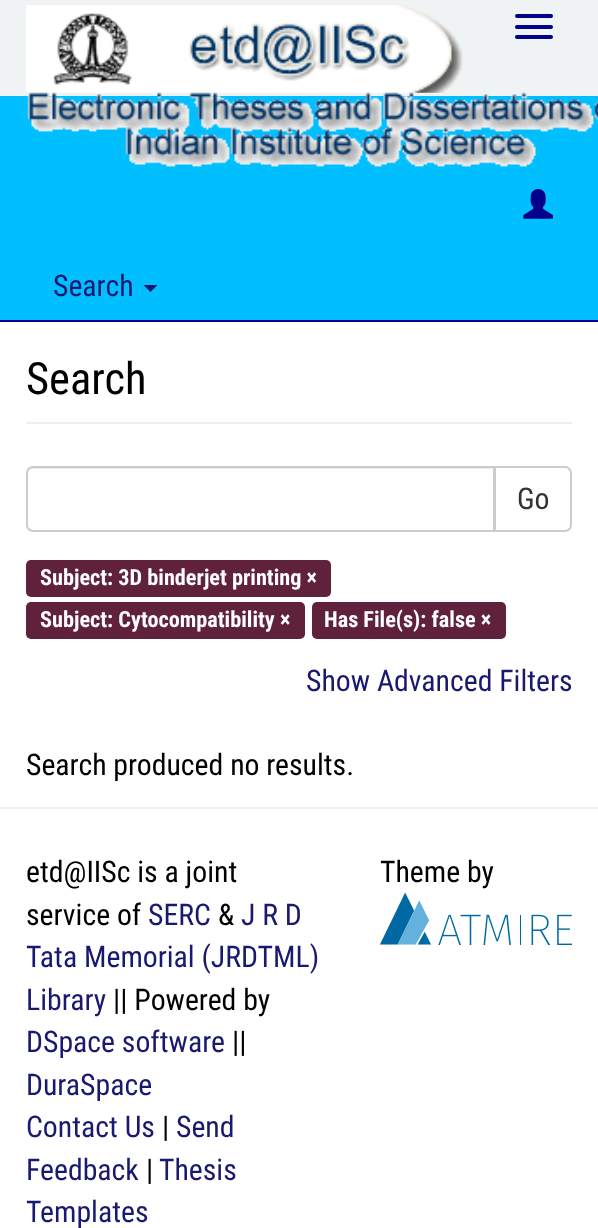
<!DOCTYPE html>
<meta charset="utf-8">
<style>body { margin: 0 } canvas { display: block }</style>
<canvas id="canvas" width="598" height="1228"></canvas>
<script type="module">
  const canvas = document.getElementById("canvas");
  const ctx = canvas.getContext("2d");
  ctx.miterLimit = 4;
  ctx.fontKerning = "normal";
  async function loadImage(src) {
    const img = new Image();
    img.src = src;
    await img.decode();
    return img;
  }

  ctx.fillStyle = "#00bfff";
  ctx.fillRect(0, 0, 598, 1228);
  ctx.fillStyle = "#f0f3f4";
  ctx.fillRect(0, 0, 598, 96);
  ctx.drawImage(await loadImage("img1.png"), 26, 5, 437, 88);
  ctx.fillStyle = "#00008b";
  ctx.beginPath();
  ctx.roundRect(515, 14, 38, 4, 2);
  ctx.fill();
  ctx.beginPath();
  ctx.roundRect(515, 25, 38, 4, 2);
  ctx.fill();
  ctx.beginPath();
  ctx.roundRect(515, 35, 38, 4, 2);
  ctx.fill();
  ctx.drawImage(await loadImage("img2.png"), 27, 92, 571, 75);
  ctx.drawImage(await loadImage("img3.png"), 523, 189, 30, 30);
  ctx.fillRect(0, 320, 598, 2);
  ctx.font = "29.75px Roboto Condensed";
  ctx.fillStyle = "#191970";
  ctx.fillText("Search", 53, 296);
  ctx.beginPath();
  ctx.moveTo(143.5, 285);
  ctx.lineTo(157.5, 285);
  ctx.lineTo(150.5, 292);
  ctx.closePath();
  ctx.fill();
  ctx.fillStyle = "#ffffff";
  ctx.fillRect(0, 322, 598, 906);
  ctx.fillStyle = "#eeeeee";
  ctx.fillRect(26, 422, 546, 2);
  ctx.font = "44.5px Roboto Condensed";
  ctx.fillStyle = "#000000";
  ctx.fillText("Search", 26, 394);
  ctx.beginPath();
  ctx.roundRect(495, 467, 76, 64, [0, 6, 6, 0]);
  ctx.strokeStyle = "#cccccc";
  ctx.lineWidth = 2;
  ctx.stroke();
  ctx.fillStyle = "#ffffff";
  ctx.beginPath();
  ctx.roundRect(26, 466, 469, 66, [7, 0, 0, 7]);
  ctx.fill();
  ctx.fillStyle = "#ececec";
  ctx.beginPath();
  ctx.moveTo(33, 469);
  ctx.lineTo(494, 469);
  ctx.lineTo(494, 467);
  ctx.lineTo(33, 467);
  ctx.bezierCurveTo(30, 467, 28, 469, 28, 472);
  ctx.lineTo(28, 474);
  ctx.bezierCurveTo(28, 471, 30, 469, 33, 469);
  ctx.closePath();
  ctx.fill();
  ctx.beginPath();
  ctx.roundRect(27, 467, 467, 64, [6, 0, 0, 6]);
  ctx.stroke();
  ctx.font = "29.75px Roboto Condensed";
  ctx.fillStyle = "#333333";
  ctx.fillText("Go", 517, 509);
  ctx.fillStyle = "#60223b";
  ctx.beginPath();
  ctx.roundRect(26, 560, 305, 37, 5);
  ctx.fill();
  ctx.font = "bold 22.25px Roboto Condensed";
  ctx.fillStyle = "#ffffff";
  ctx.fillText("Subject: 3D binderjet printing ×", 40, 585);
  ctx.fillStyle = "#60223b";
  ctx.beginPath();
  ctx.roundRect(26, 602, 279, 37, 5);
  ctx.fill();
  ctx.fillStyle = "#ffffff";
  ctx.fillText("Subject: Cytocompatibility ×", 40, 627);
  ctx.fillStyle = "#60223b";
  ctx.beginPath();
  ctx.roundRect(312, 602, 194, 37, 5);
  ctx.fill();
  ctx.fillStyle = "#ffffff";
  ctx.fillText("Has File(s): false ×", 324, 627);
  ctx.font = "29.75px Roboto Condensed";
  ctx.fillStyle = "#191970";
  ctx.fillText("Show Advanced Filters", 306, 691);
  ctx.fillStyle = "#000000";
  ctx.fillText("Search produced no results.", 26, 775);
  ctx.fillStyle = "#eeeeee";
  ctx.fillRect(0, 807, 598, 2);
  ctx.fillStyle = "#000000";
  ctx.fillText("etd@IISc is a joint", 26, 882);
  ctx.fillText("service of", 26, 925);
  ctx.fillStyle = "#191970";
  ctx.fillText("SERC", 148, 925);
  ctx.fillStyle = "#000000";
  ctx.fillText("&", 218, 925);
  ctx.fillStyle = "#191970";
  ctx.fillText("J R D", 241, 925);
  ctx.fillText("Tata Memorial (JRDTML)", 26, 967);
  ctx.fillText("Library", 26, 1010);
  ctx.fillStyle = "#000000";
  ctx.fillText("|| Powered by", 113, 1010);
  ctx.fillStyle = "#191970";
  ctx.fillText("DSpace software", 26, 1052);
  ctx.fillStyle = "#000000";
  ctx.fillText("||", 232, 1052);
  ctx.fillStyle = "#191970";
  ctx.fillText("DuraSpace", 26, 1095);
  ctx.fillText("Contact Us", 26, 1137);
  ctx.fillStyle = "#000000";
  ctx.fillText("|", 162, 1137);
  ctx.fillStyle = "#191970";
  ctx.fillText("Send", 176, 1137);
  ctx.fillText("Feedback", 26, 1180);
  ctx.fillStyle = "#000000";
  ctx.fillText("|", 146, 1180);
  ctx.fillStyle = "#191970";
  ctx.fillText("Thesis", 159, 1180);
  ctx.fillText("Templates", 26, 1222);
  ctx.fillStyle = "#000000";
  ctx.fillText("Theme by", 380, 882);
  ctx.drawImage(await loadImage("img4.png"), 380, 893, 192, 52);
</script>
